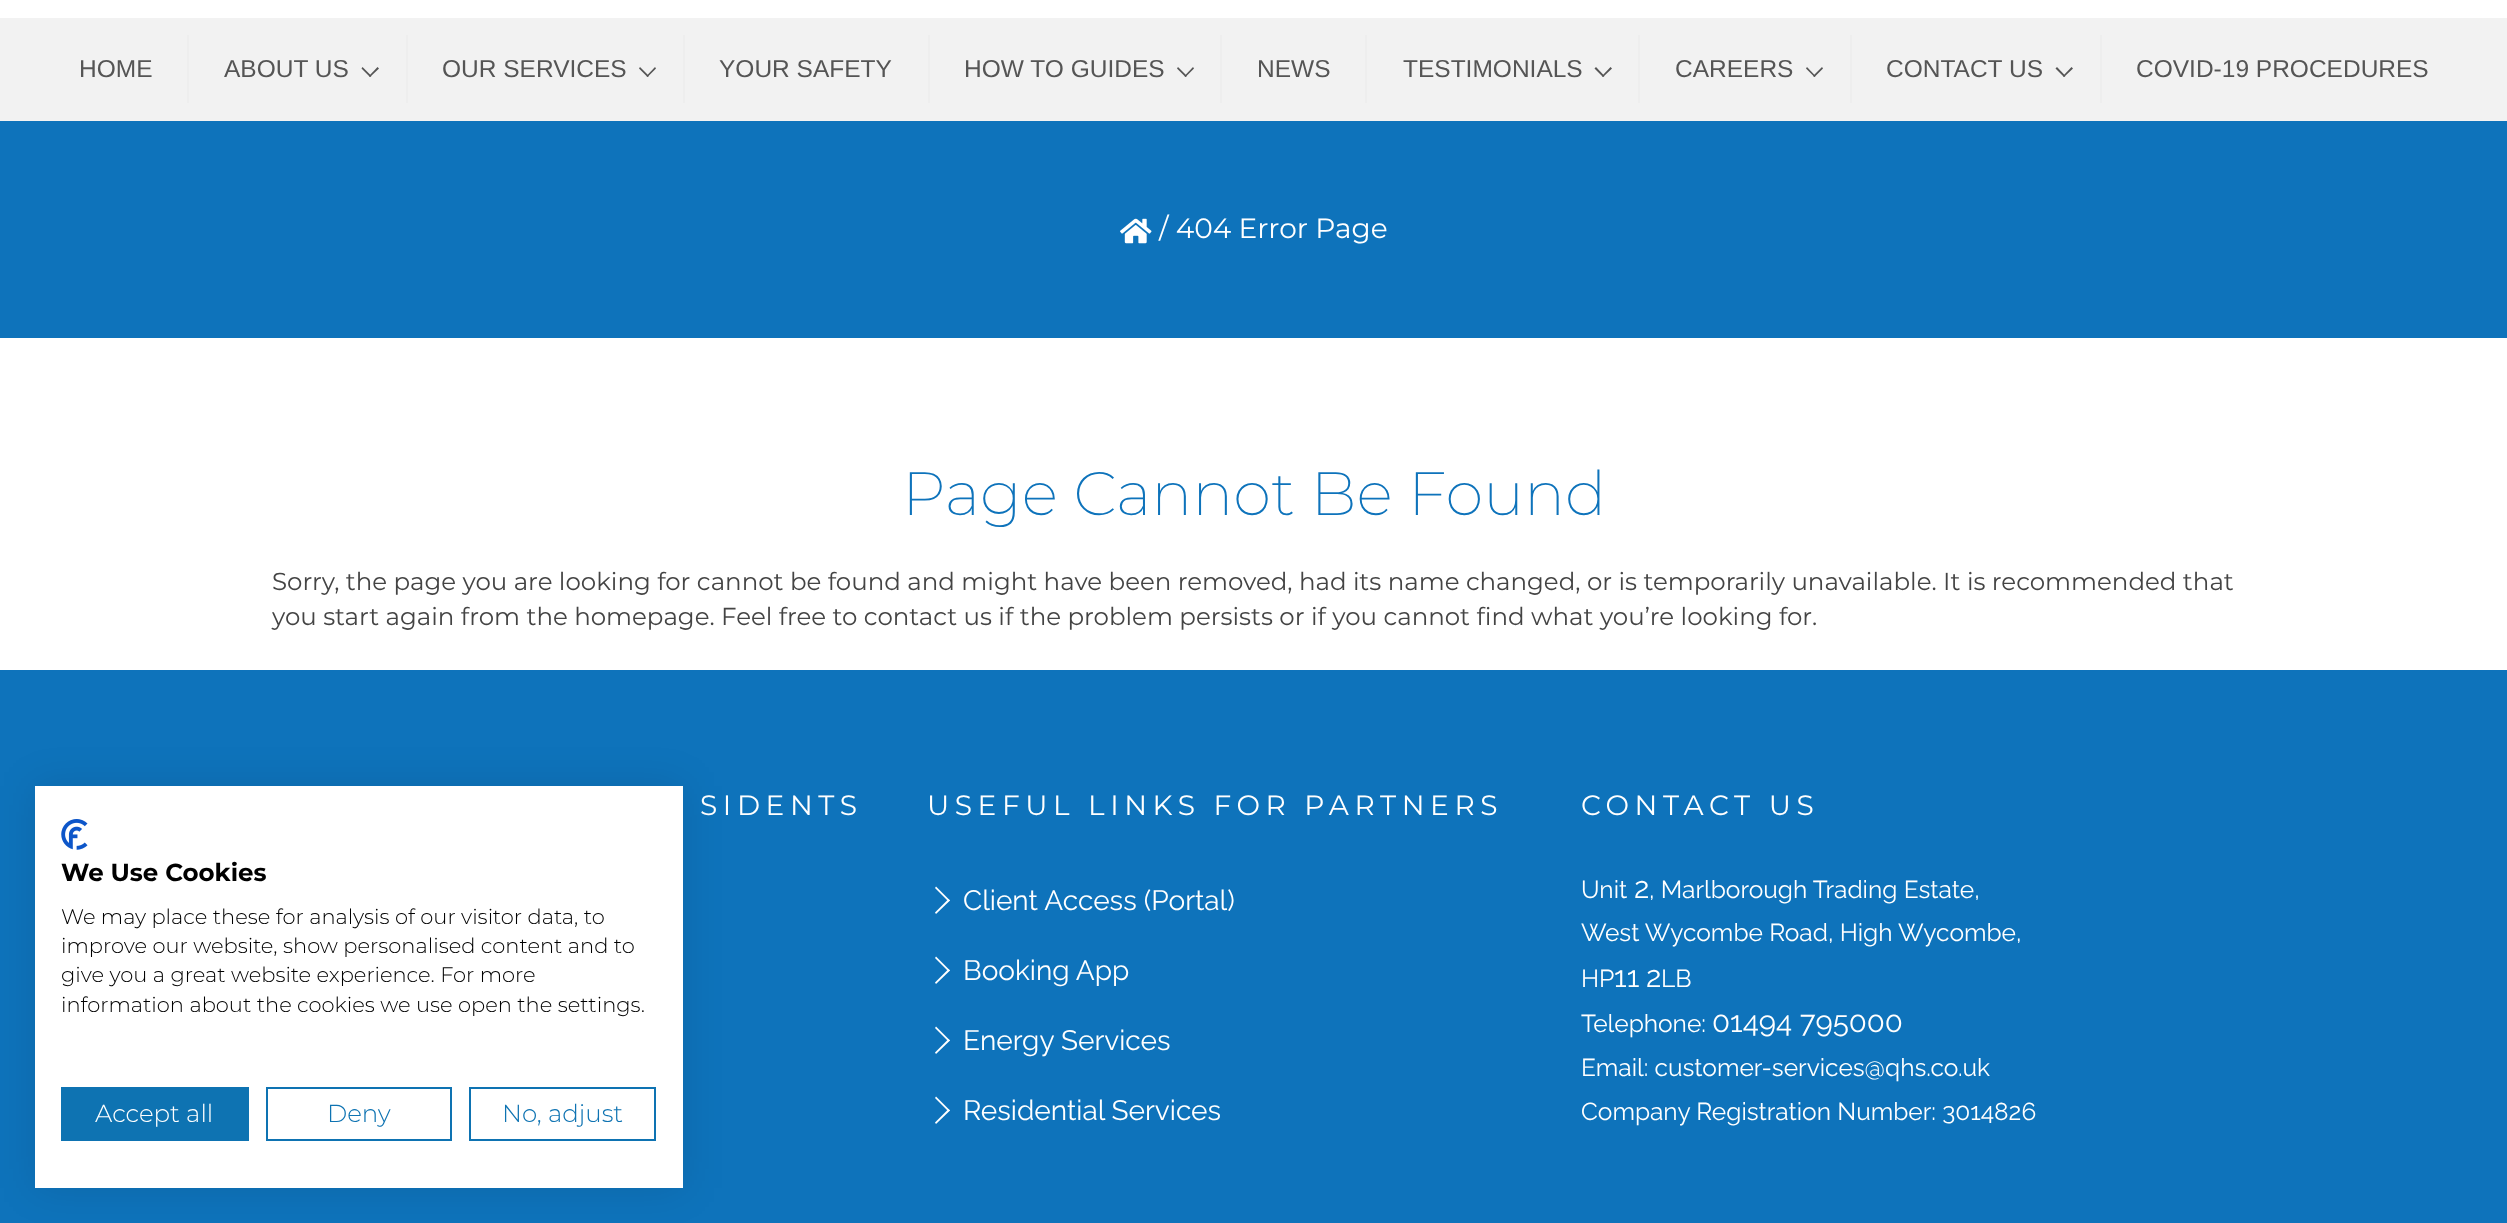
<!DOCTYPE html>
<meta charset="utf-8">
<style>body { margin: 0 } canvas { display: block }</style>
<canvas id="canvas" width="2507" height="1223"></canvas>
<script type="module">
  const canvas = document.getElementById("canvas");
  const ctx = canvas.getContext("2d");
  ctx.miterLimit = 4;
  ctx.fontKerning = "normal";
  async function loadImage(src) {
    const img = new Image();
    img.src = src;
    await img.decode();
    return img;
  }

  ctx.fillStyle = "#ffffff";
  ctx.fillRect(0, 0, 2507, 1223);
  ctx.fillStyle = "#f2f2f2";
  ctx.fillRect(0, 18, 2507, 103);
  ctx.font = "24.5px Liberation Sans";
  ctx.fillStyle = "#555555";
  ctx.fillText("HOME", 79, 77);
  ctx.fillStyle = "#eeeeee";
  ctx.fillRect(187, 35, 2, 68);
  ctx.fillStyle = "#555555";
  ctx.fillText("ABOUT US", 224, 77);
  ctx.beginPath();
  ctx.moveTo(377.5, 67);
  ctx.lineTo(379, 68.5);
  ctx.lineTo(370, 77);
  ctx.lineTo(369, 76);
  ctx.closePath();
  ctx.fill();
  ctx.beginPath();
  ctx.moveTo(362.5, 67);
  ctx.lineTo(371.5, 76);
  ctx.lineTo(370, 77);
  ctx.lineTo(361.5, 68.5);
  ctx.closePath();
  ctx.fill();
  ctx.fillStyle = "#eeeeee";
  ctx.fillRect(406, 35, 2, 68);
  ctx.fillStyle = "#555555";
  ctx.fillText("OUR SERVICES", 442, 77);
  ctx.beginPath();
  ctx.moveTo(655, 67);
  ctx.lineTo(656, 68.5);
  ctx.lineTo(647.5, 77);
  ctx.lineTo(646.5, 76);
  ctx.closePath();
  ctx.fill();
  ctx.beginPath();
  ctx.moveTo(640, 67);
  ctx.lineTo(649, 76);
  ctx.lineTo(647.5, 77);
  ctx.lineTo(639, 68.5);
  ctx.closePath();
  ctx.fill();
  ctx.fillStyle = "#eeeeee";
  ctx.fillRect(683, 35, 2, 68);
  ctx.fillStyle = "#555555";
  ctx.fillText("YOUR SAFETY", 719, 77);
  ctx.fillStyle = "#eeeeee";
  ctx.fillRect(928, 35, 2, 68);
  ctx.fillStyle = "#555555";
  ctx.fillText("HOW TO GUIDES", 964, 77);
  ctx.beginPath();
  ctx.moveTo(1193, 67);
  ctx.lineTo(1194, 68.5);
  ctx.lineTo(1185.5, 77);
  ctx.lineTo(1184.5, 76);
  ctx.closePath();
  ctx.fill();
  ctx.beginPath();
  ctx.moveTo(1178, 67);
  ctx.lineTo(1187, 76);
  ctx.lineTo(1185.5, 77);
  ctx.lineTo(1177, 68.5);
  ctx.closePath();
  ctx.fill();
  ctx.fillStyle = "#eeeeee";
  ctx.fillRect(1220, 35, 2, 68);
  ctx.fillStyle = "#555555";
  ctx.fillText("NEWS", 1257, 77);
  ctx.fillStyle = "#eeeeee";
  ctx.fillRect(1365, 35, 2, 68);
  ctx.fillStyle = "#555555";
  ctx.fillText("TESTIMONIALS", 1403, 77);
  ctx.beginPath();
  ctx.moveTo(1610.5, 67);
  ctx.lineTo(1612, 68.5);
  ctx.lineTo(1603, 77);
  ctx.lineTo(1602, 76);
  ctx.closePath();
  ctx.fill();
  ctx.beginPath();
  ctx.moveTo(1596, 67);
  ctx.lineTo(1604.5, 76);
  ctx.lineTo(1603, 77);
  ctx.lineTo(1594.5, 68.5);
  ctx.closePath();
  ctx.fill();
  ctx.fillStyle = "#eeeeee";
  ctx.fillRect(1638, 35, 2, 68);
  ctx.fillStyle = "#555555";
  ctx.fillText("CAREERS", 1675, 77);
  ctx.beginPath();
  ctx.moveTo(1822, 67);
  ctx.lineTo(1823, 68.5);
  ctx.lineTo(1814.5, 77);
  ctx.lineTo(1813, 76);
  ctx.closePath();
  ctx.fill();
  ctx.beginPath();
  ctx.moveTo(1807, 67);
  ctx.lineTo(1815.5, 76);
  ctx.lineTo(1814.5, 77);
  ctx.lineTo(1806, 68.5);
  ctx.closePath();
  ctx.fill();
  ctx.fillStyle = "#eeeeee";
  ctx.fillRect(1850, 35, 2, 68);
  ctx.fillStyle = "#555555";
  ctx.fillText("CONTACT US", 1886, 77);
  ctx.beginPath();
  ctx.moveTo(2071.5, 67);
  ctx.lineTo(2073, 68.5);
  ctx.lineTo(2064, 77);
  ctx.lineTo(2063, 76);
  ctx.closePath();
  ctx.fill();
  ctx.beginPath();
  ctx.moveTo(2057, 67);
  ctx.lineTo(2065.5, 76);
  ctx.lineTo(2064, 77);
  ctx.lineTo(2055.5, 68.5);
  ctx.closePath();
  ctx.fill();
  ctx.fillStyle = "#eeeeee";
  ctx.fillRect(2100, 35, 2, 68);
  ctx.fillStyle = "#555555";
  ctx.fillText("COVID-19 PROCEDURES", 2136, 77);
  ctx.fillStyle = "#0e73bb";
  ctx.fillRect(0, 121, 2507, 217);
  ctx.drawImage(await loadImage("img1.png"), 1120, 218, 32, 26);
  ctx.font = "28px Montserrat";
  ctx.fillStyle = "#ffffff";
  ctx.fillText("/ 404 Error Page", 1159, 238);
  ctx.font = "200 61.25px Montserrat";
  ctx.fillStyle = "#0e73bb";
  ctx.fillText("Page Cannot Be Found", 902, 515);
  ctx.font = "24.5px Montserrat";
  ctx.fillStyle = "#444444";
  ctx.fillText("Sorry, the page you are looking for cannot be found and might have been removed, had its name changed, or is temporarily unavailable. It is recommended that", 272, 590);
  ctx.fillText("you start again from the homepage. Feel free to contact us if the problem persists or if you cannot find what you’re looking for.", 272, 625);
  ctx.fillStyle = "#0e73bb";
  ctx.fillRect(0, 670, 2507, 553);
  ctx.letterSpacing = "5.6px";
  ctx.font = "28px Montserrat";
  ctx.fillStyle = "#ffffff";
  ctx.fillText("SIDENTS", 700, 815);
  ctx.fillText("USEFUL LINKS FOR PARTNERS", 927, 815);
  ctx.beginPath();
  ctx.moveTo(935, 888);
  ctx.lineTo(936, 886.5);
  ctx.lineTo(950, 900.5);
  ctx.lineTo(948.5, 901.5);
  ctx.closePath();
  ctx.fill();
  ctx.beginPath();
  ctx.moveTo(935, 912.5);
  ctx.lineTo(948.5, 899);
  ctx.lineTo(950, 900.5);
  ctx.lineTo(936, 914);
  ctx.closePath();
  ctx.fill();
  ctx.letterSpacing = "0px";
  ctx.font = "100 28px Raleway";
  ctx.fillText("Client Access (Portal)", 963, 910);
  ctx.beginPath();
  ctx.moveTo(935, 958);
  ctx.lineTo(936, 956.5);
  ctx.lineTo(950, 970.5);
  ctx.lineTo(948.5, 971.5);
  ctx.closePath();
  ctx.fill();
  ctx.beginPath();
  ctx.moveTo(935, 982.5);
  ctx.lineTo(948.5, 969);
  ctx.lineTo(950, 970.5);
  ctx.lineTo(936, 984);
  ctx.closePath();
  ctx.fill();
  ctx.fillText("Booking App", 963, 980);
  ctx.beginPath();
  ctx.moveTo(935, 1028);
  ctx.lineTo(936, 1026.5);
  ctx.lineTo(950, 1040.5);
  ctx.lineTo(948.5, 1041.5);
  ctx.closePath();
  ctx.fill();
  ctx.beginPath();
  ctx.moveTo(935, 1052.5);
  ctx.lineTo(948.5, 1039);
  ctx.lineTo(950, 1040.5);
  ctx.lineTo(936, 1054);
  ctx.closePath();
  ctx.fill();
  ctx.fillText("Energy Services", 963, 1050);
  ctx.beginPath();
  ctx.moveTo(935, 1098);
  ctx.lineTo(936, 1096.5);
  ctx.lineTo(950, 1110.5);
  ctx.lineTo(948.5, 1111.5);
  ctx.closePath();
  ctx.fill();
  ctx.beginPath();
  ctx.moveTo(935, 1122.5);
  ctx.lineTo(948.5, 1109);
  ctx.lineTo(950, 1110.5);
  ctx.lineTo(936, 1124);
  ctx.closePath();
  ctx.fill();
  ctx.fillText("Residential Services", 963, 1120);
  ctx.letterSpacing = "5.6px";
  ctx.font = "28px Montserrat";
  ctx.fillText("CONTACT US", 1581, 815);
  ctx.letterSpacing = "0px";
  ctx.font = "100 24.5px Raleway";
  ctx.fillText("Unit", 1581, 898);
  ctx.font = "100 29.5px Raleway";
  ctx.fillText("2", 1634, 898);
  ctx.font = "100 24.5px Raleway";
  ctx.fillText(", Marlborough Trading Estate,", 1649, 898);
  ctx.fillText("West Wycombe Road, High Wycombe,", 1581, 941);
  ctx.fillText("HP", 1581, 987);
  ctx.font = "100 29.5px Raleway";
  ctx.fillText("11", 1614, 987);
  ctx.fillText("2", 1646, 987);
  ctx.font = "100 24.5px Raleway";
  ctx.fillText("LB", 1661, 987);
  ctx.fillText("Telephone:", 1581, 1032);
  ctx.font = "100 29.5px Raleway";
  ctx.fillText("01494 795000", 1712, 1032);
  ctx.font = "100 24.5px Raleway";
  ctx.fillText("Email: customer-services@qhs.co.uk", 1581, 1076);
  ctx.fillText("Company Registration Number: 3014826", 1581, 1120);
  ctx.fillStyle = "rgba(0, 0, 0, 0.1)";
  ctx.filter = "blur(21px)";
  ctx.beginPath();
  ctx.rect(35, 786, 648, 402);
  ctx.fill();
  ctx.filter = "none";
  ctx.fillStyle = "#ffffff";
  ctx.fillRect(35, 786, 648, 402);
  ctx.drawImage(await loadImage("img2.png"), 61, 819, 27, 31);
  ctx.font = "bold 24.5px Montserrat";
  ctx.fillStyle = "#000000";
  ctx.fillText("We Use Cookies", 61, 881);
  ctx.font = "300 21px Montserrat";
  ctx.fillText("We may place these for analysis of our visitor data, to", 61, 924);
  ctx.fillText("improve our website, show personalised content and to", 61, 953);
  ctx.fillText("give you a great website experience. For more", 61, 982);
  ctx.fillText("information about the cookies we use open the settings.", 61, 1012);
  ctx.fillStyle = "#0e73b2";
  ctx.fillRect(61, 1087, 188, 54);
  ctx.font = "300 24.5px Montserrat";
  ctx.fillStyle = "#ffffff";
  ctx.fillText("Accept all", 95, 1122);
  ctx.strokeStyle = "#0e73b2";
  ctx.lineWidth = 2;
  ctx.strokeRect(267, 1088, 184, 52);
  ctx.fillStyle = "#0e73b2";
  ctx.fillText("Deny", 327, 1122);
  ctx.strokeRect(470, 1088, 185, 52);
  ctx.fillText("No, adjust", 502, 1122);
</script>
